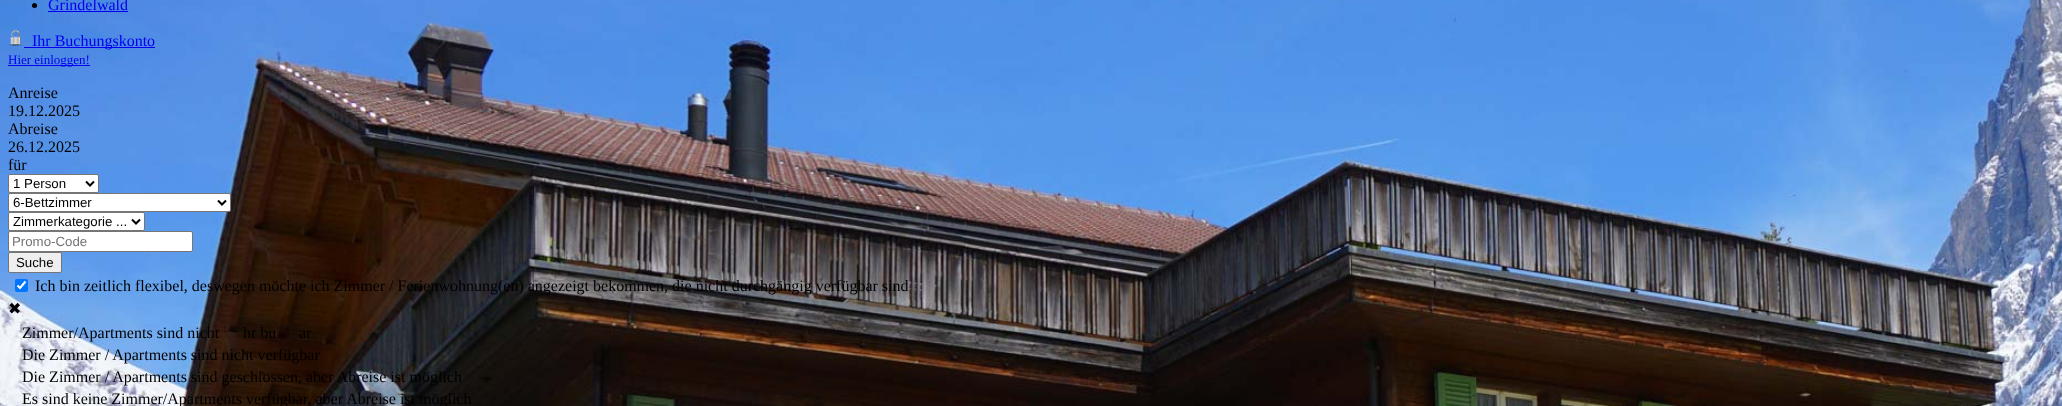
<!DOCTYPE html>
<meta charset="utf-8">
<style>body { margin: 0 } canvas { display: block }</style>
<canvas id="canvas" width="2062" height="406"></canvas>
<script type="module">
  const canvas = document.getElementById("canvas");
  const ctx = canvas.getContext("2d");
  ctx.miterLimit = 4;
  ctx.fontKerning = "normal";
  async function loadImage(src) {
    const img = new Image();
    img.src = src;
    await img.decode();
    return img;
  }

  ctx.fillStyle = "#ffffff";
  ctx.fillRect(0, 0, 2062, 406);
  ctx.drawImage(await loadImage("img1.png"), 0, 0, 2062, 406);
  ctx.fillStyle = "#000000";
  ctx.beginPath();
  ctx.arc(34.5, 5.5, 2.5, 0, Math.PI * 2);
  ctx.fill();
  ctx.font = "16px Liberation Serif";
  ctx.fillStyle = "#0000ee";
  ctx.fillText("Grindelwald", 48, 10);
  ctx.fillRect(48, 11, 80, 1);
  ctx.drawImage(await loadImage("img2.png"), 9, 30, 14, 16);
  ctx.fillRect(24, 47, 131, 1);
  ctx.fillText("Ihr Buchungskonto", 32, 46);
  ctx.fillRect(8, 65, 82, 1);
  ctx.font = "13px Liberation Serif";
  ctx.fillText("Hier einloggen!", 8, 64);
  ctx.font = "16px Liberation Serif";
  ctx.fillStyle = "#000000";
  ctx.fillText("Anreise", 8, 98);
  ctx.fillText("19.12.2025", 8, 116);
  ctx.fillText("Abreise", 8, 134);
  ctx.fillText("26.12.2025", 8, 152);
  ctx.fillText("für", 8, 170);
  ctx.fillStyle = "#ffffff";
  ctx.beginPath();
  ctx.roundRect(8.5, 174.5, 90, 18, 1.5);
  ctx.fill();
  ctx.strokeStyle = "#767676";
  ctx.stroke();
  ctx.beginPath();
  ctx.moveTo(86, 181.5);
  ctx.lineTo(90, 185.5);
  ctx.lineTo(94, 181.5);
  ctx.strokeStyle = "#000000";
  ctx.lineWidth = 2;
  ctx.stroke();
  ctx.font = "13.25px Liberation Sans";
  ctx.fillStyle = "#000000";
  ctx.fillText("1 Person", 13, 188);
  ctx.fillStyle = "#ffffff";
  ctx.beginPath();
  ctx.roundRect(8.5, 193.5, 222, 18, 1.5);
  ctx.fill();
  ctx.strokeStyle = "#767676";
  ctx.lineWidth = 1;
  ctx.stroke();
  ctx.beginPath();
  ctx.moveTo(218, 200.5);
  ctx.lineTo(222, 204.5);
  ctx.lineTo(226, 200.5);
  ctx.strokeStyle = "#000000";
  ctx.lineWidth = 2;
  ctx.stroke();
  ctx.fillStyle = "#000000";
  ctx.fillText("6-Bettzimmer", 13, 207);
  ctx.fillStyle = "#ffffff";
  ctx.beginPath();
  ctx.roundRect(8.5, 212.5, 136, 18, 1.5);
  ctx.fill();
  ctx.strokeStyle = "#767676";
  ctx.lineWidth = 1;
  ctx.stroke();
  ctx.beginPath();
  ctx.moveTo(132, 219.5);
  ctx.lineTo(136, 223.5);
  ctx.lineTo(140, 219.5);
  ctx.strokeStyle = "#000000";
  ctx.lineWidth = 2;
  ctx.stroke();
  ctx.fillStyle = "#000000";
  ctx.fillText("Zimmerkategorie ...", 13, 226);
  ctx.fillStyle = "#ffffff";
  ctx.beginPath();
  ctx.roundRect(8.5, 231.5, 184, 20, 1.5);
  ctx.fill();
  ctx.strokeStyle = "#767676";
  ctx.lineWidth = 1;
  ctx.stroke();
  ctx.fillStyle = "#757575";
  ctx.fillText("Promo-Code", 12, 246);
  ctx.fillStyle = "#efefef";
  ctx.beginPath();
  ctx.roundRect(8.5, 252.5, 53, 20, 1.5);
  ctx.fill();
  ctx.stroke();
  ctx.fillStyle = "#000000";
  ctx.fillText("Suche", 16, 267);
  ctx.fillStyle = "#0075ff";
  ctx.beginPath();
  ctx.roundRect(15, 279, 13, 13, 2);
  ctx.fill();
  ctx.beginPath();
  ctx.moveTo(17.5, 285.5);
  ctx.lineTo(20, 288);
  ctx.lineTo(25.5, 281.5);
  ctx.strokeStyle = "#ffffff";
  ctx.lineWidth = 2.1;
  ctx.stroke();
  ctx.font = "16px Liberation Serif";
  ctx.fillStyle = "#000000";
  ctx.fillText("Ich bin zeitlich flexibel, deswegen möchte ich Zimmer / Ferienwohnung(en) angezeigt bekommen, die nicht durchgängig verfügbar sind", 35, 291);
  ctx.font = "16px DejaVu Sans";
  ctx.fillText("✖", 8, 314);
  ctx.font = "16px Liberation Serif";
  ctx.fillText("Zimmer/Apartments sind nicht", 22, 338);
  ctx.fillText("hr bu", 243, 338);
  ctx.fillText("ar", 299, 338);
  ctx.fillText("Die Zimmer / Apartments sind nicht verfügbar", 22, 360);
  ctx.fillText("Die Zimmer / Apartments sind geschlossen, aber Abreise ist möglich", 22, 382);
  ctx.fillText("Es sind keine Zimmer/Apartments verfügbar, aber Abreise ist möglich", 22, 404);
</script>
